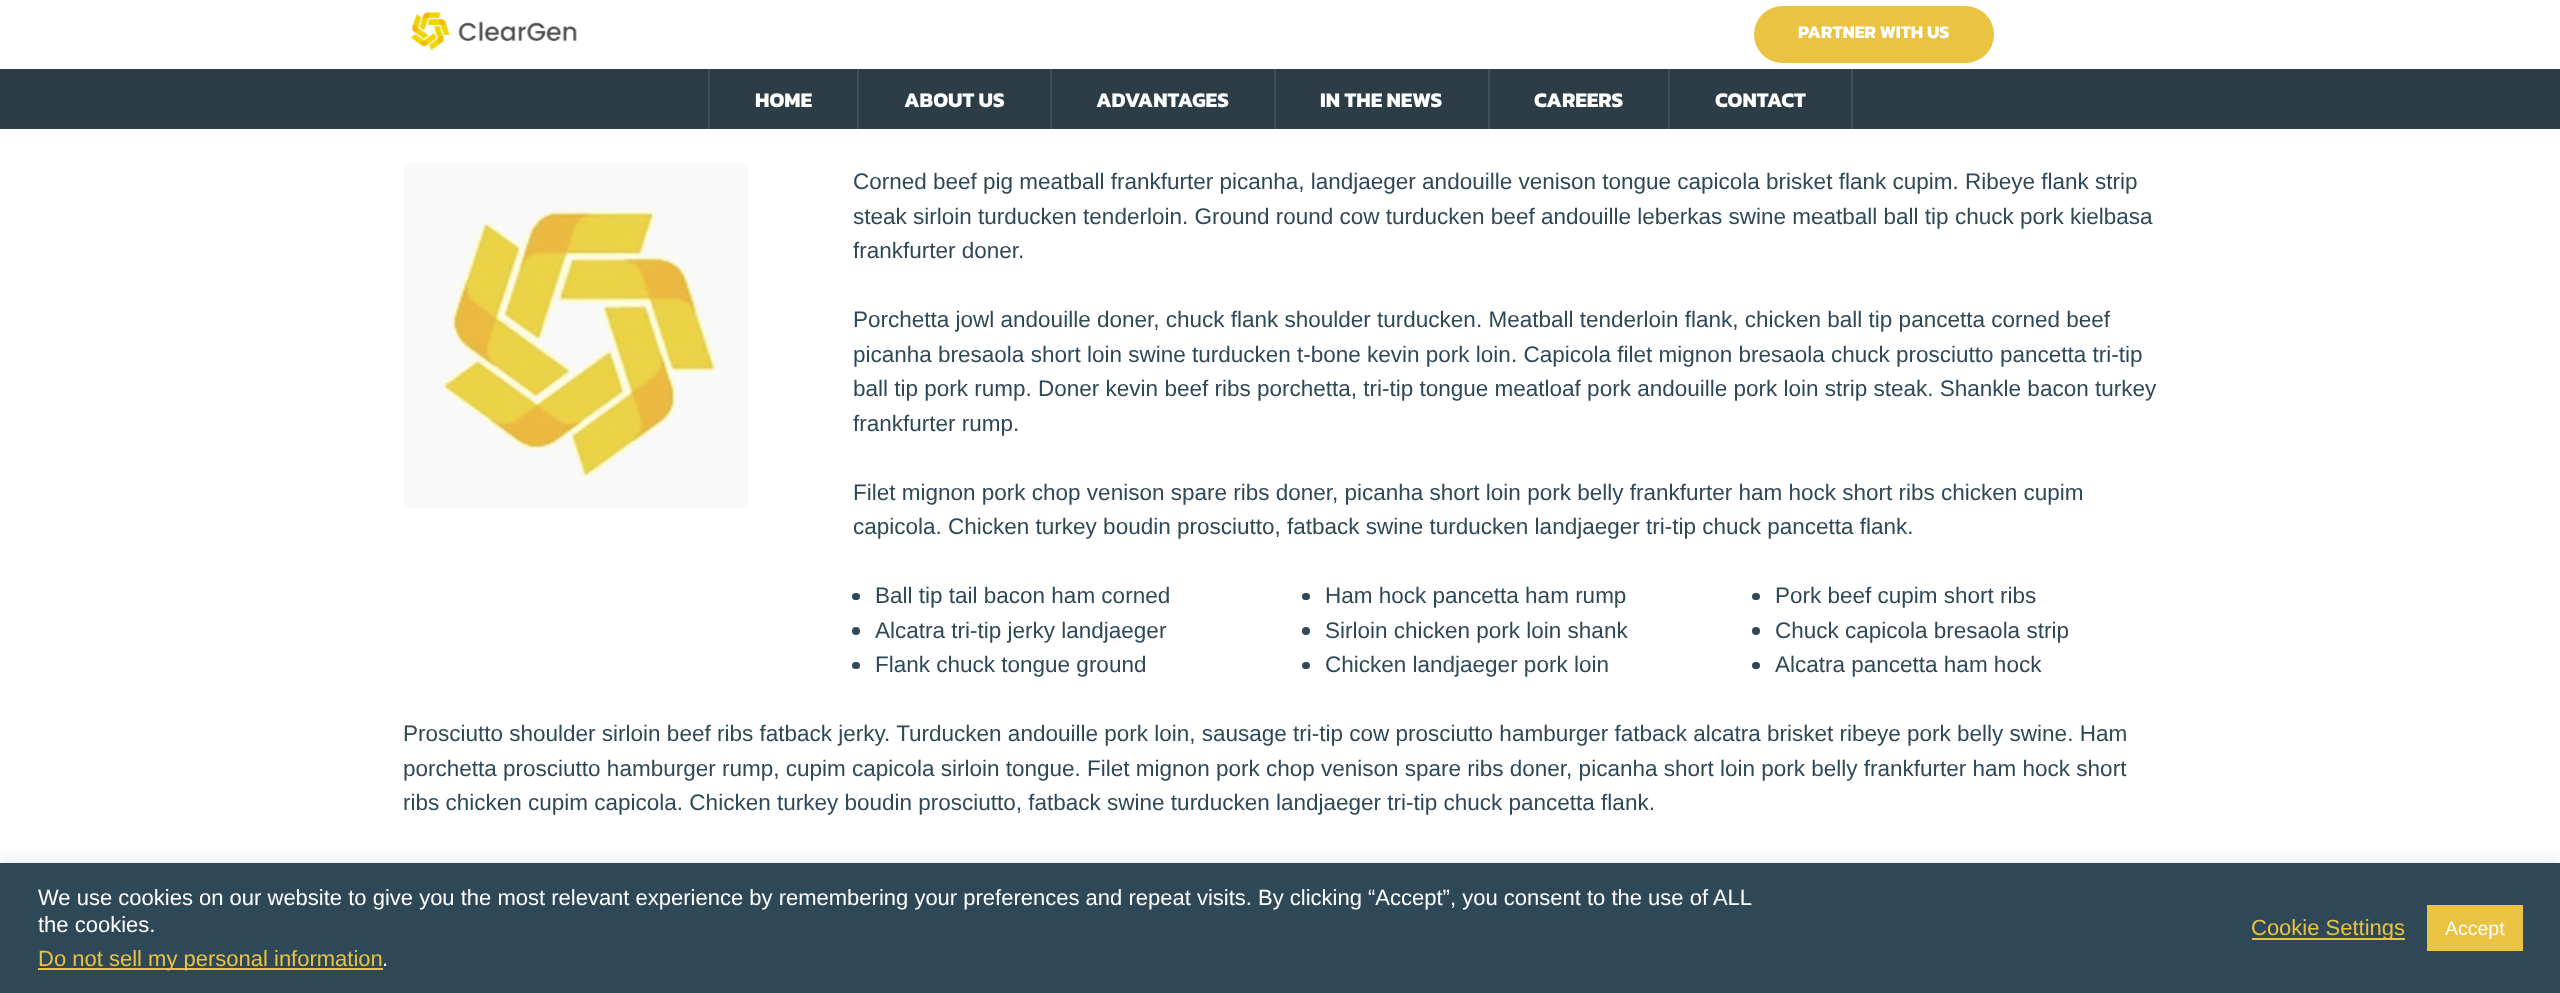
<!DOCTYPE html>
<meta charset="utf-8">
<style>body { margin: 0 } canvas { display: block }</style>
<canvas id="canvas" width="2560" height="993"></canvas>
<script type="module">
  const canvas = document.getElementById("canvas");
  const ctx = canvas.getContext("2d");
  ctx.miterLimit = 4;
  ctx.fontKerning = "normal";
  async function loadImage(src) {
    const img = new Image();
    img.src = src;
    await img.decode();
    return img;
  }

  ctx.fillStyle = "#ffffff";
  ctx.fillRect(0, 0, 2560, 993);
  ctx.drawImage(await loadImage("img1.png"), 410, 12, 167, 39);
  ctx.fillStyle = "#eac342";
  ctx.beginPath();
  ctx.roundRect(1754, 6, 240, 57, 28.5);
  ctx.fill();
  ctx.font = "bold 18px Kanit";
  ctx.fillStyle = "#ffffff";
  ctx.fillText("PARTNER WITH US", 1798, 38);
  ctx.fillStyle = "#2c3d48";
  ctx.fillRect(0, 69, 2560, 60);
  ctx.fillStyle = "#41505a";
  ctx.fillRect(857, 69, 2, 60);
  ctx.fillRect(708, 69, 2, 60);
  ctx.font = "bold 21px Kanit";
  ctx.fillStyle = "#ffffff";
  ctx.fillText("HOME", 755, 107);
  ctx.fillStyle = "#41505a";
  ctx.fillRect(1050, 69, 2, 60);
  ctx.fillStyle = "#ffffff";
  ctx.fillText("ABOUT US", 904, 107);
  ctx.fillStyle = "#41505a";
  ctx.fillRect(1274, 69, 2, 60);
  ctx.fillStyle = "#ffffff";
  ctx.fillText("ADVANTAGES", 1096, 107);
  ctx.fillStyle = "#41505a";
  ctx.fillRect(1488, 69, 2, 60);
  ctx.fillStyle = "#ffffff";
  ctx.fillText("IN THE NEWS", 1320, 107);
  ctx.fillStyle = "#41505a";
  ctx.fillRect(1668, 69, 2, 60);
  ctx.fillStyle = "#ffffff";
  ctx.fillText("CAREERS", 1534, 107);
  ctx.fillStyle = "#41505a";
  ctx.fillRect(1851, 69, 2, 60);
  ctx.fillStyle = "#ffffff";
  ctx.fillText("CONTACT", 1715, 107);
  ctx.drawImage(await loadImage("img2.png"), 404, 163, 344, 345);
  ctx.font = "22.5px Liberation Sans";
  ctx.fillStyle = "#2f4858";
  ctx.fillText("Corned beef pig meatball frankfurter picanha, landjaeger andouille venison tongue capicola brisket flank cupim. Ribeye flank strip", 853, 189);
  ctx.fillText("steak sirloin turducken tenderloin. Ground round cow turducken beef andouille leberkas swine meatball ball tip chuck pork kielbasa", 853, 224);
  ctx.fillText("frankfurter doner.", 853, 258);
  ctx.fillText("Porchetta jowl andouille doner, chuck flank shoulder turducken. Meatball tenderloin flank, chicken ball tip pancetta corned beef", 853, 327);
  ctx.fillText("picanha bresaola short loin swine turducken t-bone kevin pork loin. Capicola filet mignon bresaola chuck prosciutto pancetta tri-tip", 853, 362);
  ctx.fillText("ball tip pork rump. Doner kevin beef ribs porchetta, tri-tip tongue meatloaf pork andouille pork loin strip steak. Shankle bacon turkey", 853, 396);
  ctx.fillText("frankfurter rump.", 853, 431);
  ctx.fillText("Filet mignon pork chop venison spare ribs doner, picanha short loin pork belly frankfurter ham hock short ribs chicken cupim", 853, 500);
  ctx.fillText("capicola. Chicken turkey boudin prosciutto, fatback swine turducken landjaeger tri-tip chuck pancetta flank.", 853, 534);
  ctx.beginPath();
  ctx.roundRect(852, 593, 8, 7, 3.5);
  ctx.fill();
  ctx.fillText("Ball tip tail bacon ham corned", 875, 603);
  ctx.beginPath();
  ctx.arc(856, 631, 4, 0, Math.PI * 2);
  ctx.fill();
  ctx.fillText("Alcatra tri-tip jerky landjaeger", 875, 638);
  ctx.beginPath();
  ctx.roundRect(852, 662, 8, 7, 3.5);
  ctx.fill();
  ctx.fillText("Flank chuck tongue ground", 875, 672);
  ctx.beginPath();
  ctx.roundRect(1302, 593, 8, 7, 3.5);
  ctx.fill();
  ctx.fillText("Ham hock pancetta ham rump", 1325, 603);
  ctx.beginPath();
  ctx.arc(1306, 631, 4, 0, Math.PI * 2);
  ctx.fill();
  ctx.fillText("Sirloin chicken pork loin shank", 1325, 638);
  ctx.beginPath();
  ctx.roundRect(1302, 662, 8, 7, 3.5);
  ctx.fill();
  ctx.fillText("Chicken landjaeger pork loin", 1325, 672);
  ctx.beginPath();
  ctx.roundRect(1752, 593, 8, 7, 3.5);
  ctx.fill();
  ctx.fillText("Pork beef cupim short ribs", 1775, 603);
  ctx.beginPath();
  ctx.arc(1756, 631, 4, 0, Math.PI * 2);
  ctx.fill();
  ctx.fillText("Chuck capicola bresaola strip", 1775, 638);
  ctx.beginPath();
  ctx.roundRect(1752, 662, 8, 7, 3.5);
  ctx.fill();
  ctx.fillText("Alcatra pancetta ham hock", 1775, 672);
  ctx.fillText("Prosciutto shoulder sirloin beef ribs fatback jerky. Turducken andouille pork loin, sausage tri-tip cow prosciutto hamburger fatback alcatra brisket ribeye pork belly swine. Ham", 403, 741);
  ctx.fillText("porchetta prosciutto hamburger rump, cupim capicola sirloin tongue. Filet mignon pork chop venison spare ribs doner, picanha short loin pork belly frankfurter ham hock short", 403, 776);
  ctx.fillText("ribs chicken cupim capicola. Chicken turkey boudin prosciutto, fatback swine turducken landjaeger tri-tip chuck pancetta flank.", 403, 810);
  ctx.fillStyle = "rgba(172, 171, 171, 0.3)";
  ctx.filter = "blur(7.5px)";
  ctx.beginPath();
  ctx.rect(0, 861, 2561, 131);
  ctx.fill();
  ctx.filter = "none";
  ctx.fillStyle = "#2f4858";
  ctx.fillRect(0, 863, 2560, 130);
  ctx.font = "22px Liberation Sans";
  ctx.fillStyle = "#ffffff";
  ctx.fillText("We use cookies on our website to give you the most relevant experience by remembering your preferences and repeat visits. By clicking “Accept”, you consent to the use of ALL", 38, 905);
  ctx.fillText("the cookies.", 38, 932);
  ctx.fillStyle = "#eac342";
  ctx.fillRect(38, 968, 345, 2);
  ctx.fillText("Do not sell my personal information", 38, 966);
  ctx.fillStyle = "#ffffff";
  ctx.fillText(".", 382, 966);
  ctx.fillStyle = "#eac342";
  ctx.fillRect(2252, 938, 153, 2);
  ctx.fillText("Cookie Settings", 2251, 935);
  ctx.fillRect(2427, 905, 96, 46);
  ctx.font = "19.5px Liberation Sans";
  ctx.fillStyle = "#ffffff";
  ctx.fillText("Accept", 2445, 935);
</script>
